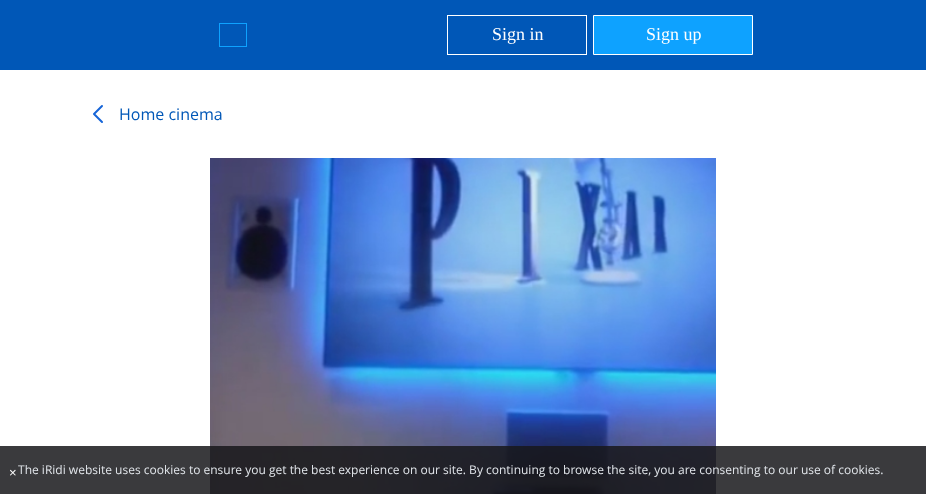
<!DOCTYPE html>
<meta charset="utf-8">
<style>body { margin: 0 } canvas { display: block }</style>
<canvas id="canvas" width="926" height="494"></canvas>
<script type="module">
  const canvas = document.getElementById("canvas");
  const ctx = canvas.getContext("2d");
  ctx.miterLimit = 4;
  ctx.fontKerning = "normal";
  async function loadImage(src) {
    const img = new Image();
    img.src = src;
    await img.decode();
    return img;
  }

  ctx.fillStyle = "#ffffff";
  ctx.fillRect(0, 0, 926, 494);
  ctx.fillStyle = "#0057b7";
  ctx.fillRect(0, 0, 926, 70);
  ctx.strokeStyle = "#0ea2ff";
  ctx.strokeRect(219.5, 23.5, 27, 23);
  ctx.strokeStyle = "#ffffff";
  ctx.strokeRect(447.5, 15.5, 139, 39);
  ctx.font = "18px Liberation Serif";
  ctx.fillStyle = "#ffffff";
  ctx.fillText("Sign in", 492, 40);
  ctx.fillStyle = "#0ea2ff";
  ctx.beginPath();
  ctx.rect(593.5, 15.5, 159, 39);
  ctx.fill();
  ctx.stroke();
  ctx.fillStyle = "#ffffff";
  ctx.fillText("Sign up", 646, 40);
  ctx.beginPath();
  ctx.moveTo(102, 122);
  ctx.lineTo(94, 114);
  ctx.lineTo(102, 106);
  ctx.strokeStyle = "#1665d8";
  ctx.lineWidth = 2;
  ctx.lineCap = "round";
  ctx.lineJoin = "round";
  ctx.stroke();
  ctx.font = "16px Open Sans";
  ctx.fillStyle = "#0057b7";
  ctx.fillText("Home cinema", 119, 120);
  ctx.drawImage(await loadImage("img1.png"), 210, 158, 506, 336);
  ctx.fillStyle = "rgba(23, 24, 27, 0.85)";
  ctx.fillRect(0, 446, 926, 48);
  ctx.font = "13px Liberation Sans";
  ctx.fillStyle = "#ffffff";
  ctx.fillText("×", 9, 477);
  ctx.font = "12px Open Sans";
  ctx.fillStyle = "#e1e5ea";
  ctx.fillText("The iRidi website uses cookies to ensure you get the best experience on our site. By continuing to browse the site, you are consenting to our use of cookies.", 18, 474);
</script>
